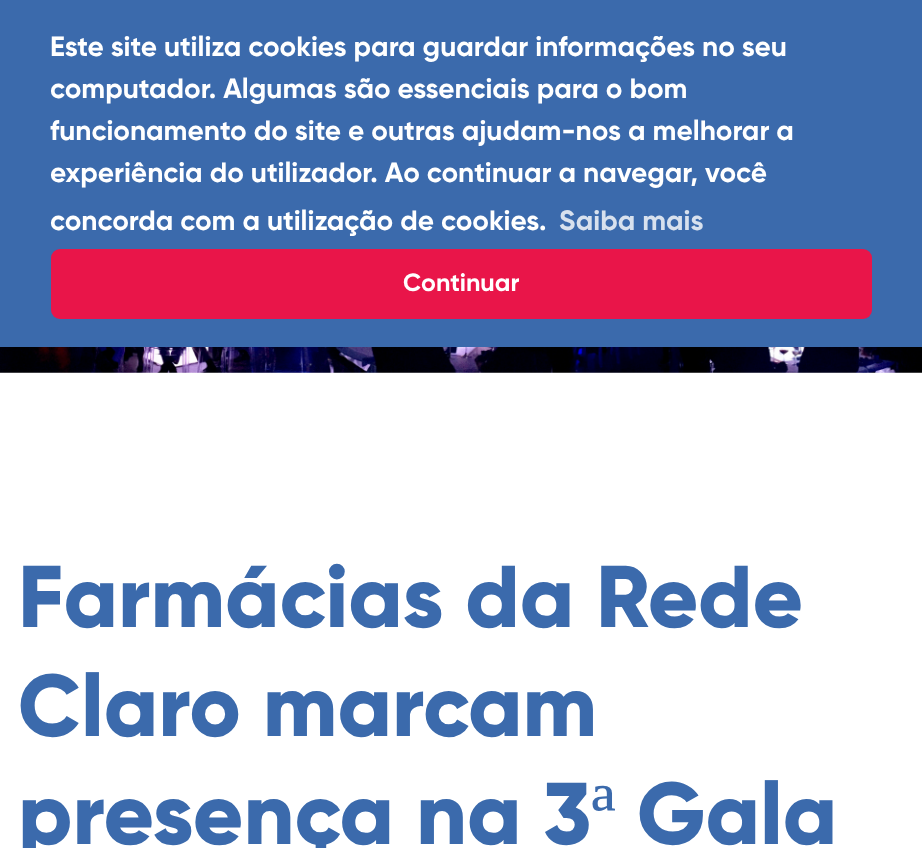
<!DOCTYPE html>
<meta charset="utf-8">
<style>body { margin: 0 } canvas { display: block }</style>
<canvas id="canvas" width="922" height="848"></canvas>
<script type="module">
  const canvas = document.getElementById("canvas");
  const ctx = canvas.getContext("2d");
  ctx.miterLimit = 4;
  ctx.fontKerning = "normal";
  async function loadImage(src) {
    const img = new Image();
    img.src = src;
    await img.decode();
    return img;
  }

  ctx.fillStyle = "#ffffff";
  ctx.fillRect(0, 0, 922, 848);
  ctx.fillStyle = "#3b6aac";
  ctx.fillRect(0, 0, 922, 347);
  ctx.font = "bold 28px Gilroy";
  ctx.fillStyle = "#ffffff";
  ctx.fillText("Este site utiliza cookies para guardar informações no seu", 50, 56);
  ctx.fillText("computador. Algumas são essenciais para o bom", 50, 98);
  ctx.fillText("funcionamento do site e outras ajudam-nos a melhorar a", 50, 140);
  ctx.fillText("experiência do utilizador. Ao continuar a navegar, você", 50, 182);
  ctx.fillText("concorda com a utilização de cookies.", 50, 230);
  ctx.fillStyle = "#d8e1ee";
  ctx.fillText("Saiba mais", 559, 230);
  ctx.fillStyle = "#e91549";
  ctx.beginPath();
  ctx.roundRect(51, 249, 821, 70, 9);
  ctx.fill();
  ctx.font = "bold 25px Gilroy";
  ctx.fillStyle = "#ffffff";
  ctx.fillText("Continuar", 403, 291);
  ctx.drawImage(await loadImage("img1.png"), 0, 347, 922, 26);
  ctx.font = "800 87.5px Gilroy";
  ctx.fillStyle = "#3b6aac";
  ctx.fillText("Farmácias da Rede", 18, 627);
  ctx.fillText("Claro marcam", 18, 736);
  ctx.fillText("presença na 3", 18, 844);
  ctx.font = "87.5px Liberation Serif";
  ctx.fillText("ª", 591, 844);
  ctx.font = "800 87.5px Gilroy";
  ctx.fillText("Gala", 637, 844);
</script>
